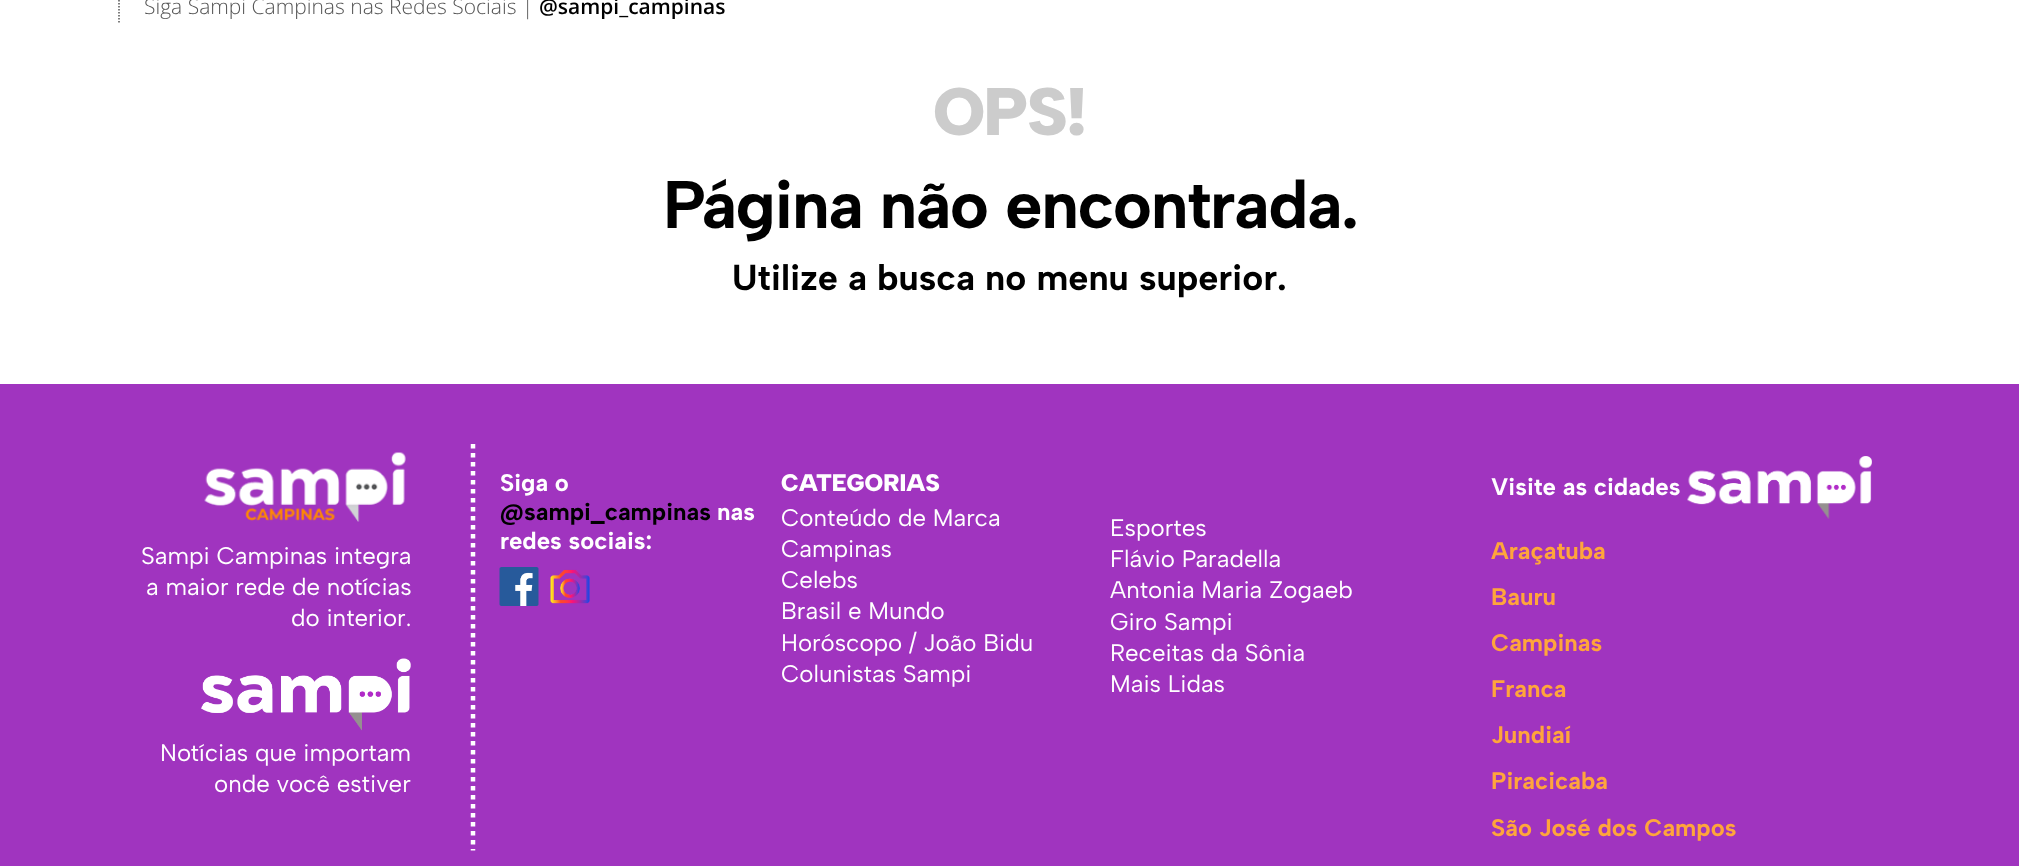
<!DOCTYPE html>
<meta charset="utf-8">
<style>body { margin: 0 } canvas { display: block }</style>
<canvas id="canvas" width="2019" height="866"></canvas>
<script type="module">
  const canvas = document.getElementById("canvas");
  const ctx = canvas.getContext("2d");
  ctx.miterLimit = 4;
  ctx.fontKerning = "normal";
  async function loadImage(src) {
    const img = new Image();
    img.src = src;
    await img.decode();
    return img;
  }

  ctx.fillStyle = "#ffffff";
  ctx.fillRect(0, 0, 2019, 866);
  ctx.beginPath();
  ctx.moveTo(119, -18);
  ctx.lineTo(119, 24);
  ctx.strokeStyle = "#545454";
  ctx.lineWidth = 1.5;
  ctx.setLineDash([1.5, 1.5]);
  ctx.stroke();
  ctx.font = "300 21px Open Sans";
  ctx.fillStyle = "#545454";
  ctx.fillText("Siga Sampi Campinas nas Redes Sociais |", 144, 14);
  ctx.font = "600 21px Open Sans";
  ctx.fillStyle = "#000000";
  ctx.fillText("@sampi_campinas", 539, 14);
  ctx.letterSpacing = "-1.5px";
  ctx.font = "900 67.25px Albert Sans";
  ctx.fillStyle = "#cccccc";
  ctx.fillText("OPS!", 933, 135);
  ctx.font = "bold 67.25px Albert Sans";
  ctx.fillStyle = "#000000";
  ctx.fillText("Página não encontrada.", 663, 228);
  ctx.letterSpacing = "0px";
  ctx.font = "bold 36px Albert Sans";
  ctx.fillText("Utilize a busca no menu superior.", 732, 290);
  ctx.fillStyle = "#a034bf";
  ctx.fillRect(0, 384, 2019, 482);
  ctx.beginPath();
  ctx.moveTo(473, 444);
  ctx.lineTo(473, 850.5);
  ctx.strokeStyle = "#ffffff";
  ctx.lineWidth = 4.5;
  ctx.setLineDash([4.5, 4.5]);
  ctx.stroke();
  ctx.drawImage(await loadImage("img1.png"), 204, 452, 202, 70);
  ctx.font = "24px Albert Sans";
  ctx.fillStyle = "#ffffff";
  ctx.fillText("Sampi Campinas integra", 141, 564);
  ctx.fillText("a maior rede de notícias", 146, 595);
  ctx.fillText("do interior.", 291, 626);
  ctx.drawImage(await loadImage("img2.png"), 201, 658, 210, 73);
  ctx.fillText("Notícias que importam", 160, 761);
  ctx.fillText("onde você estiver", 214, 792);
  ctx.font = "bold 24px Albert Sans";
  ctx.fillText("Siga o", 500, 491);
  ctx.fillStyle = "#000000";
  ctx.fillText("@sampi_campinas", 500, 520);
  ctx.fillStyle = "#ffffff";
  ctx.fillText("nas", 717, 520);
  ctx.fillText("redes sociais:", 500, 549);
  ctx.drawImage(await loadImage("img3.png"), 499, 567, 40, 39);
  ctx.drawImage(await loadImage("img4.png"), 550, 569, 40, 35);
  ctx.font = "900 24px Albert Sans";
  ctx.fillText("CATEGORIAS", 781, 491);
  ctx.font = "24px Albert Sans";
  ctx.fillText("Conteúdo de Marca", 781, 526);
  ctx.fillText("Campinas", 781, 557);
  ctx.fillText("Celebs", 781, 588);
  ctx.fillText("Brasil e Mundo", 781, 619);
  ctx.fillText("Horóscopo / João Bidu", 781, 651);
  ctx.fillText("Colunistas Sampi", 781, 682);
  ctx.fillText("Esportes", 1110, 536);
  ctx.fillText("Flávio Paradella", 1110, 567);
  ctx.fillText("Antonia Maria Zogaeb", 1110, 598);
  ctx.fillText("Giro Sampi", 1110, 630);
  ctx.fillText("Receitas da Sônia", 1110, 661);
  ctx.fillText("Mais Lidas", 1110, 692);
  ctx.font = "bold 24px Albert Sans";
  ctx.fillText("Visite as cidades", 1491, 495);
  ctx.drawImage(await loadImage("img5.png"), 1687, 456, 185, 63);
  ctx.fillStyle = "#ffa53b";
  ctx.fillText("Araçatuba", 1491, 559);
  ctx.fillText("Bauru", 1491, 605);
  ctx.fillText("Campinas", 1491, 651);
  ctx.fillText("Franca", 1491, 697);
  ctx.fillText("Jundiaí", 1491, 743);
  ctx.fillText("Piracicaba", 1491, 789);
  ctx.fillText("São José dos Campos", 1491, 836);
</script>
